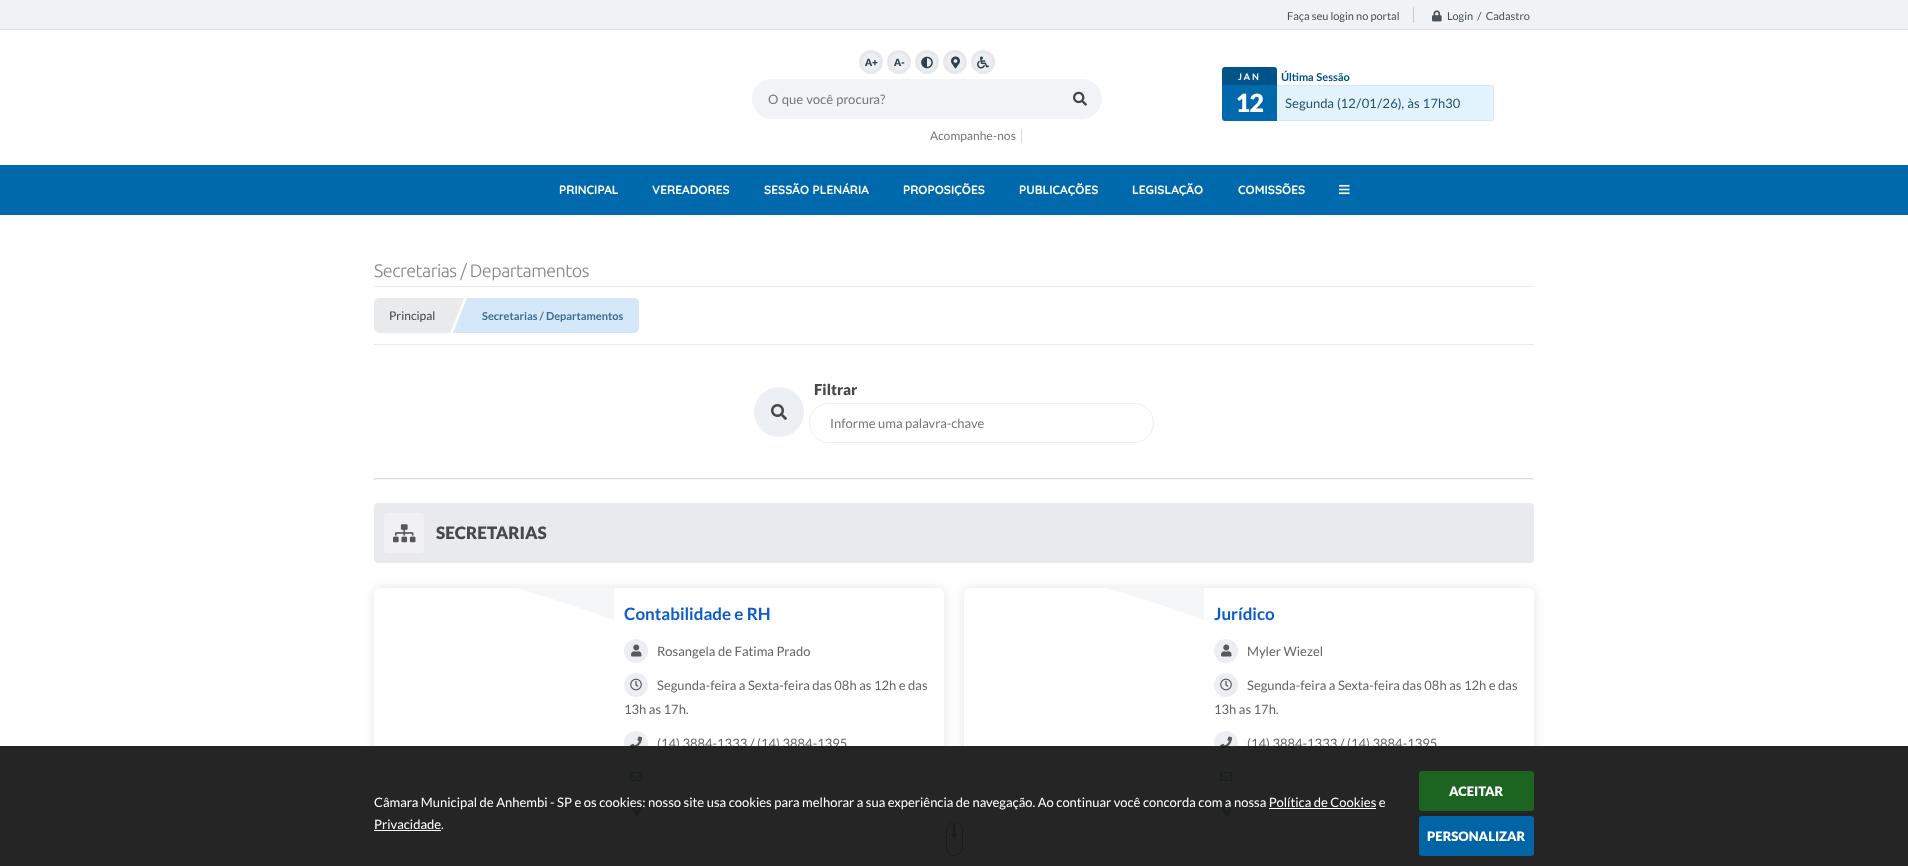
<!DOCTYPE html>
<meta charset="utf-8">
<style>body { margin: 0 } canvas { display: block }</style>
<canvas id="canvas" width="1908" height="866"></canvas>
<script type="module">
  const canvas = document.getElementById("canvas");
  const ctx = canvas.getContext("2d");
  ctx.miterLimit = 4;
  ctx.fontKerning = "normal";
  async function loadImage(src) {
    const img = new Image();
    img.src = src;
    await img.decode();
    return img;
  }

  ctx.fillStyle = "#ffffff";
  ctx.fillRect(0, 0, 1908, 866);
  ctx.fillStyle = "#f0f2f5";
  ctx.fillRect(0, 0, 1908, 29);
  ctx.fillStyle = "#dde1e5";
  ctx.fillRect(0, 29, 1908, 1);
  ctx.font = "11px 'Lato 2'";
  ctx.fillStyle = "#495156";
  ctx.fillText("Faça seu login no portal", 1287, 20);
  ctx.fillStyle = "#c4cacf";
  ctx.beginPath();
  ctx.roundRect(1413, 7, 1, 16, 0.5);
  ctx.fill();
  ctx.drawImage(await loadImage("img1.png"), 1432, 10, 10, 12);
  ctx.fillStyle = "#495156";
  ctx.fillText("Login  /  Cadastro", 1447, 20);
  ctx.fillStyle = "#eceef2";
  ctx.beginPath();
  ctx.arc(871, 62, 10.5, 0, Math.PI * 2);
  ctx.fill();
  ctx.strokeStyle = "#e6e8ec";
  ctx.lineWidth = 3;
  ctx.stroke();
  ctx.font = "900 10px 'Lato 2'";
  ctx.fillStyle = "#2e404c";
  ctx.fillText("A+", 865, 66);
  ctx.fillStyle = "#eceef2";
  ctx.beginPath();
  ctx.arc(899, 62, 10.5, 0, Math.PI * 2);
  ctx.fill();
  ctx.stroke();
  ctx.fillStyle = "#2e404c";
  ctx.fillText("A-", 894, 66);
  ctx.fillStyle = "#eceef2";
  ctx.beginPath();
  ctx.arc(927, 62, 10.5, 0, Math.PI * 2);
  ctx.fill();
  ctx.stroke();
  ctx.drawImage(await loadImage("img2.png"), 921, 56, 12, 13);
  ctx.beginPath();
  ctx.arc(955, 62, 10.5, 0, Math.PI * 2);
  ctx.fill();
  ctx.stroke();
  ctx.drawImage(await loadImage("img3.png"), 951, 56, 9, 13);
  ctx.beginPath();
  ctx.arc(983, 62, 10.5, 0, Math.PI * 2);
  ctx.fill();
  ctx.stroke();
  ctx.drawImage(await loadImage("img4.png"), 977, 56, 12, 13);
  ctx.fillStyle = "#f1f3f7";
  ctx.beginPath();
  ctx.roundRect(752.5, 79.5, 349, 39, 19.5);
  ctx.fill();
  ctx.strokeStyle = "#f1f3f7";
  ctx.lineWidth = 1;
  ctx.stroke();
  ctx.font = "13px Lato";
  ctx.fillStyle = "#777777";
  ctx.fillText("O que você procura?", 768, 104);
  ctx.drawImage(await loadImage("img5.png"), 1073, 91, 14, 15);
  ctx.fillStyle = "#dddddd";
  ctx.fillRect(1021, 129, 1, 14);
  ctx.font = "12px Lato";
  ctx.fillStyle = "#777777";
  ctx.fillText("Acompanhe-nos", 930, 140);
  ctx.fillStyle = "#00548a";
  ctx.beginPath();
  ctx.roundRect(1222, 67, 55, 18, [3, 3, 0, 0]);
  ctx.fill();
  ctx.letterSpacing = "2px";
  ctx.font = "bold 9px Lato";
  ctx.fillStyle = "#ffffff";
  ctx.fillText("JAN", 1238, 80);
  ctx.fillStyle = "#0069ac";
  ctx.beginPath();
  ctx.roundRect(1222, 85, 55, 36, [0, 0, 0, 3]);
  ctx.fill();
  ctx.letterSpacing = "-1px";
  ctx.font = "900 25px 'Lato 2'";
  ctx.fillStyle = "#ffffff";
  ctx.fillText("12", 1236, 112);
  ctx.letterSpacing = "0px";
  ctx.font = "bold 11px Lato";
  ctx.fillStyle = "#00548a";
  ctx.fillText("Última Sessão", 1281, 81);
  ctx.fillStyle = "#e2f3fd";
  ctx.beginPath();
  ctx.roundRect(1277, 85, 217, 36, [0, 3, 3, 0]);
  ctx.fill();
  ctx.fillStyle = "#d4e9f6";
  ctx.beginPath();
  ctx.moveTo(1277, 85);
  ctx.lineTo(1491, 85);
  ctx.bezierCurveTo(1493, 85, 1494, 86, 1494, 88);
  ctx.lineTo(1494, 118);
  ctx.bezierCurveTo(1494, 120, 1493, 121, 1491, 121);
  ctx.lineTo(1277, 121);
  ctx.closePath();
  ctx.moveTo(1277, 86);
  ctx.lineTo(1491, 86);
  ctx.bezierCurveTo(1492, 86, 1493, 87, 1493, 88);
  ctx.lineTo(1493, 118);
  ctx.bezierCurveTo(1493, 119, 1492, 120, 1491, 120);
  ctx.lineTo(1277, 120);
  ctx.closePath();
  ctx.fill("evenodd");
  ctx.font = "13px Lato";
  ctx.fillStyle = "#255371";
  ctx.fillText("Segunda (12/01/26), às 17h30", 1285, 108);
  ctx.fillStyle = "#0069ac";
  ctx.fillRect(0, 165, 1908, 50);
  ctx.font = "bold 12px Quicksand";
  ctx.fillStyle = "#ffffff";
  ctx.fillText("PRINCIPAL", 559, 194);
  ctx.fillText("VEREADORES", 652, 194);
  ctx.fillText("SESSÃO PLENÁRIA", 764, 194);
  ctx.fillText("PROPOSIÇÕES", 903, 194);
  ctx.fillText("PUBLICAÇÕES", 1019, 194);
  ctx.fillText("LEGISLAÇÃO", 1132, 194);
  ctx.fillText("COMISSÕES", 1238, 194);
  ctx.drawImage(await loadImage("img6.png"), 1339, 184, 11, 11);
  ctx.fillStyle = "rgba(0, 0, 0, 0.1)";
  ctx.filter = "blur(6px)";
  ctx.beginPath();
  ctx.roundRect(374, 588, 570, 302, 6);
  ctx.fill();
  ctx.filter = "none";
  ctx.fillStyle = "#ffffff";
  ctx.beginPath();
  ctx.roundRect(374, 588, 570, 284, 6);
  ctx.fill();
  ctx.fillStyle = "#edeef1";
  ctx.beginPath();
  ctx.arc(636, 743, 12, 0, Math.PI * 2);
  ctx.fill();
  ctx.drawImage(await loadImage("img12.png"), 630, 736, 12, 13);
  ctx.font = "13px 'Lato 2'";
  ctx.fillStyle = "#65656b";
  ctx.fillText("(14) 3884-1333 / (14) 3884-1395", 657, 748);
  ctx.fillStyle = "#edeef1";
  ctx.beginPath();
  ctx.arc(636, 777, 12, 0, Math.PI * 2);
  ctx.fill();
  ctx.drawImage(await loadImage("img13.png"), 630, 772, 12, 9);
  ctx.beginPath();
  ctx.arc(636, 811, 12, 0, Math.PI * 2);
  ctx.fill();
  ctx.drawImage(await loadImage("img14.png"), 632, 804, 9, 13);
  ctx.fillStyle = "#f1f1f4";
  ctx.beginPath();
  ctx.roundRect(614, 862, 315, 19, 15);
  ctx.fill();
  ctx.fillStyle = "rgba(0, 0, 0, 0.1)";
  ctx.filter = "blur(6px)";
  ctx.beginPath();
  ctx.roundRect(964, 588, 570, 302, 6);
  ctx.fill();
  ctx.filter = "none";
  ctx.fillStyle = "#ffffff";
  ctx.beginPath();
  ctx.roundRect(964, 588, 570, 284, 6);
  ctx.fill();
  ctx.fillStyle = "#edeef1";
  ctx.beginPath();
  ctx.arc(1226, 743, 12, 0, Math.PI * 2);
  ctx.fill();
  ctx.drawImage(await loadImage("img12.png"), 1220, 736, 12, 13);
  ctx.fillStyle = "#65656b";
  ctx.fillText("(14) 3884-1333 / (14) 3884-1395", 1247, 748);
  ctx.fillStyle = "#edeef1";
  ctx.beginPath();
  ctx.arc(1226, 777, 12, 0, Math.PI * 2);
  ctx.fill();
  ctx.drawImage(await loadImage("img13.png"), 1220, 772, 12, 9);
  ctx.beginPath();
  ctx.arc(1226, 811, 12, 0, Math.PI * 2);
  ctx.fill();
  ctx.drawImage(await loadImage("img14.png"), 1222, 804, 9, 13);
  ctx.fillStyle = "#f1f1f4";
  ctx.beginPath();
  ctx.roundRect(1204, 862, 315, 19, 15);
  ctx.fill();
  ctx.fillStyle = "rgba(255, 255, 255, 0.85)";
  ctx.fillRect(844, 792, 120, 74);
  ctx.beginPath();
  ctx.roundRect(946.5, 822.5, 16, 33, 8);
  ctx.strokeStyle = "#04365d";
  ctx.stroke();
  ctx.drawImage(await loadImage("img15.png"), 950, 824, 8, 14);
  ctx.fillStyle = "rgba(25, 25, 25, 0.95)";
  ctx.fillRect(0, 746, 1908, 120);
  ctx.fillStyle = "#ffffff";
  ctx.fillText("Câmara Municipal de Anhembi - SP e os cookies: nosso site usa cookies para melhorar a sua experiência de navegação. Ao continuar você concorda com a nossa Política de Cookies e", 374, 807);
  ctx.fillText("Privacidade.", 374, 829);
  ctx.fillRect(1269, 808, 107, 1);
  ctx.fillRect(374, 830, 67, 1);
  ctx.fillStyle = "#1b6520";
  ctx.beginPath();
  ctx.roundRect(1419, 771, 115, 40, 3);
  ctx.fill();
  ctx.font = "900 13px Lato";
  ctx.fillStyle = "#ffffff";
  ctx.fillText("ACEITAR", 1449, 796);
  ctx.fillStyle = "#0164a4";
  ctx.beginPath();
  ctx.roundRect(1419, 816, 115, 40, 3);
  ctx.fill();
  ctx.fillStyle = "#ffffff";
  ctx.fillText("PERSONALIZAR", 1427, 841);
  ctx.letterSpacing = "-0.5px";
  ctx.font = "300 18px Ubuntu";
  ctx.fillStyle = "#868686";
  ctx.fillText("Secretarias / Departamentos", 374, 277);
  ctx.fillStyle = "#e9e9e9";
  ctx.fillRect(374, 286, 1160, 1);
  ctx.fillRect(374, 344, 1160, 1);
  ctx.fillStyle = "#e9eaec";
  ctx.beginPath();
  ctx.roundRect(374, 298, 76, 35, [5, 0, 0, 5]);
  ctx.fill();
  ctx.letterSpacing = "0px";
  ctx.font = "12px 'Lato 2'";
  ctx.fillStyle = "#444444";
  ctx.fillText("Principal", 389, 320);
  ctx.fillStyle = "#e9eaec";
  ctx.beginPath();
  ctx.moveTo(450, 298);
  ctx.lineTo(464, 298);
  ctx.lineTo(450, 333);
  ctx.closePath();
  ctx.fill();
  ctx.fillStyle = "#d4e8f9";
  ctx.beginPath();
  ctx.roundRect(467, 298, 172, 35, [0, 5, 5, 0]);
  ctx.fill();
  ctx.beginPath();
  ctx.moveTo(467, 333);
  ctx.lineTo(453, 333);
  ctx.lineTo(467, 298);
  ctx.closePath();
  ctx.fill();
  ctx.font = "bold 11px 'Lato 2'";
  ctx.fillStyle = "#3d6d92";
  ctx.fillText("Secretarias / Departamentos", 482, 320);
  ctx.fillStyle = "#eceff4";
  ctx.beginPath();
  ctx.arc(779, 412, 25, 0, Math.PI * 2);
  ctx.fill();
  ctx.drawImage(await loadImage("img7.png"), 771, 404, 16, 16);
  ctx.font = "900 15px Lato";
  ctx.fillStyle = "#49494b";
  ctx.fillText("Filtrar", 814, 395);
  ctx.beginPath();
  ctx.roundRect(809.5, 403.5, 344, 39, 19.5);
  ctx.strokeStyle = "#eceff4";
  ctx.stroke();
  ctx.font = "13px 'Lato 2'";
  ctx.fillStyle = "#777777";
  ctx.fillText("Informe uma palavra-chave", 830, 428);
  ctx.fillStyle = "#dcdcdc";
  ctx.fillRect(374, 478, 1160, 1);
  ctx.fillStyle = "#f7f7f7";
  ctx.fillRect(1533, 478, 1, 2);
  ctx.fillRect(374, 479, 1160, 1);
  ctx.fillStyle = "#dcdcdc";
  ctx.fillRect(374, 478, 1, 2);
  ctx.fillStyle = "#e8eaee";
  ctx.beginPath();
  ctx.roundRect(374, 503, 1160, 60, 4);
  ctx.fill();
  ctx.fillStyle = "#f1f1f4";
  ctx.beginPath();
  ctx.roundRect(384, 513, 40, 40, 4);
  ctx.fill();
  ctx.drawImage(await loadImage("img8.png"), 393, 524, 23, 19);
  ctx.font = "900 17px Lato";
  ctx.fillStyle = "#49494b";
  ctx.fillText("SECRETARIAS", 436, 539);
  ctx.drawImage(await loadImage("img9.png"), 518, 588, 96, 32);
  ctx.font = "bold 17px 'Lato 2'";
  ctx.fillStyle = "#0e5ccb";
  ctx.fillText("Contabilidade e RH", 624, 620);
  ctx.fillStyle = "#edeef1";
  ctx.beginPath();
  ctx.arc(636, 651, 12, 0, Math.PI * 2);
  ctx.fill();
  ctx.drawImage(await loadImage("img10.png"), 631, 644, 11, 13);
  ctx.font = "13px 'Lato 2'";
  ctx.fillStyle = "#65656b";
  ctx.fillText("Rosangela de Fatima Prado", 657, 656);
  ctx.fillStyle = "#edeef1";
  ctx.beginPath();
  ctx.arc(636, 685, 12, 0, Math.PI * 2);
  ctx.fill();
  ctx.drawImage(await loadImage("img11.png"), 630, 678, 12, 13);
  ctx.fillStyle = "#65656b";
  ctx.fillText("Segunda-feira a Sexta-feira das 08h as 12h e das", 657, 690);
  ctx.fillText("13h as 17h.", 624, 714);
  ctx.drawImage(await loadImage("img9.png"), 1108, 588, 96, 32);
  ctx.font = "bold 17px 'Lato 2'";
  ctx.fillStyle = "#0e5ccb";
  ctx.fillText("Jurídico", 1214, 620);
  ctx.fillStyle = "#edeef1";
  ctx.beginPath();
  ctx.arc(1226, 651, 12, 0, Math.PI * 2);
  ctx.fill();
  ctx.drawImage(await loadImage("img10.png"), 1221, 644, 11, 13);
  ctx.font = "13px 'Lato 2'";
  ctx.fillStyle = "#65656b";
  ctx.fillText("Myler Wiezel", 1247, 656);
  ctx.fillStyle = "#edeef1";
  ctx.beginPath();
  ctx.arc(1226, 685, 12, 0, Math.PI * 2);
  ctx.fill();
  ctx.drawImage(await loadImage("img11.png"), 1220, 678, 12, 13);
  ctx.fillStyle = "#65656b";
  ctx.fillText("Segunda-feira a Sexta-feira das 08h as 12h e das", 1247, 690);
  ctx.fillText("13h as 17h.", 1214, 714);
</script>
